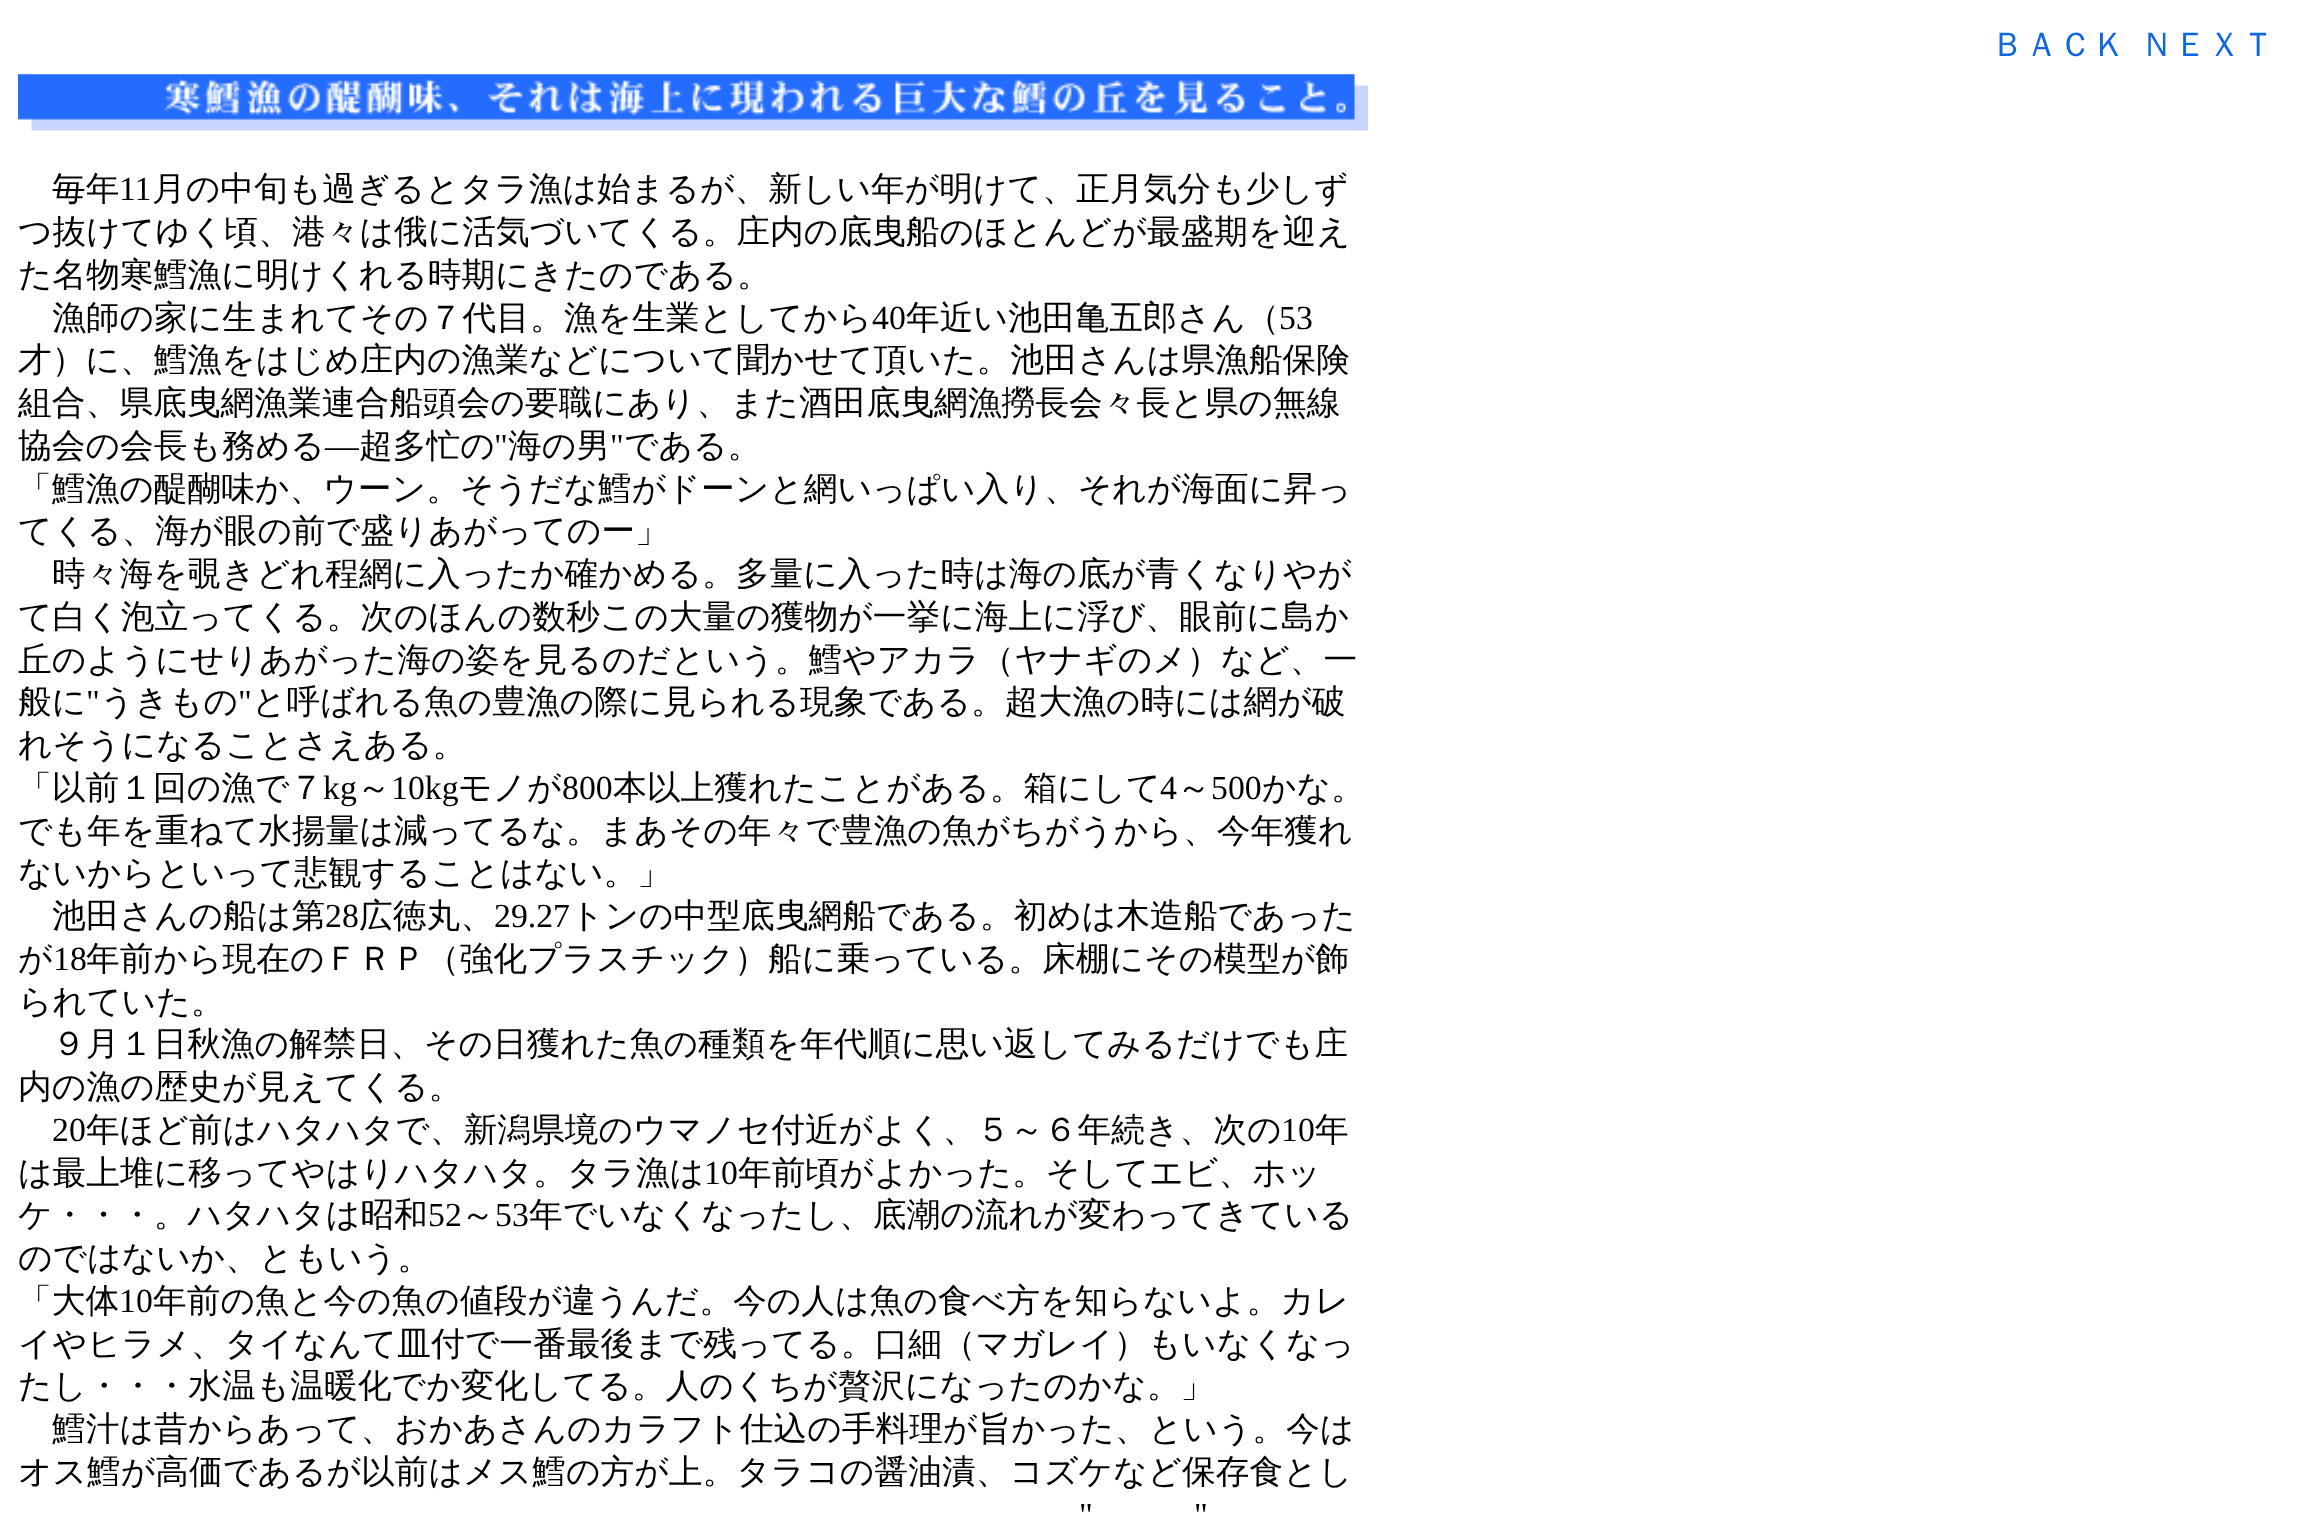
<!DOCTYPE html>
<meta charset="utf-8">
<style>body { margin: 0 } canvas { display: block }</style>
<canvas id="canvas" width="2299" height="1515"></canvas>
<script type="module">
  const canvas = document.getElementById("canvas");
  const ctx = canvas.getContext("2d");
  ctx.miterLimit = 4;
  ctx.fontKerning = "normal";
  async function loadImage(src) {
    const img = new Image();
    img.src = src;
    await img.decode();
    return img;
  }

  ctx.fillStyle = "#ffffff";
  ctx.fillRect(0, 0, 2299, 1515);
  ctx.font = "500 33.75px WenQuanYi Zen Hei";
  ctx.fillStyle = "#1066de";
  ctx.fillText("ＢＡＣＫ", 1991, 56);
  ctx.fillText("ＮＥＸＴ", 2140, 56);
  ctx.drawImage(await loadImage("img1.png"), 18, 74, 1350, 57);
  ctx.fillStyle = "#000000";
  ctx.fillText("毎年", 52, 200);
  ctx.font = "33.75px Liberation Serif";
  ctx.fillText("11", 119, 200);
  ctx.font = "500 33.75px WenQuanYi Zen Hei";
  ctx.fillText("月の中旬も過ぎるとタラ漁は始まるが、新しい年が明けて、正月気分も少しず", 152, 200);
  ctx.fillText("つ抜けてゆく頃、港々は俄に活気づいてくる。庄内の底曳船のほとんどが最盛期を迎え", 18, 243);
  ctx.fillText("た名物寒鱈漁に明けくれる時期にきたのである。", 18, 286);
  ctx.fillText("漁師の家に生まれてその７代目。漁を生業としてから", 52, 329);
  ctx.font = "33.75px Liberation Serif";
  ctx.fillText("40", 872, 329);
  ctx.font = "500 33.75px WenQuanYi Zen Hei";
  ctx.fillText("年近い池田亀五郎さん（", 906, 329);
  ctx.font = "33.75px Liberation Serif";
  ctx.fillText("53", 1279, 329);
  ctx.font = "500 33.75px WenQuanYi Zen Hei";
  ctx.fillText("才）に、鱈漁をはじめ庄内の漁業などについて聞かせて頂いた。池田さんは県漁船保険", 18, 371);
  ctx.fillText("組合、県底曳網漁業連合船頭会の要職にあり、また酒田底曳網漁撈長会々長と県の無線", 18, 414);
  ctx.fillText("協会の会長も務める", 18, 457);
  ctx.fillText("超多忙の", 359, 457);
  ctx.font = "33.75px Liberation Serif";
  ctx.fillText("\"", 494, 457);
  ctx.font = "500 33.75px WenQuanYi Zen Hei";
  ctx.fillText("海の男", 508, 457);
  ctx.font = "33.75px Liberation Serif";
  ctx.fillText("\"", 610, 457);
  ctx.font = "500 33.75px WenQuanYi Zen Hei";
  ctx.fillText("である。", 624, 457);
  ctx.font = "33.75px Liberation Serif";
  ctx.fillText("―", 325, 457);
  ctx.font = "500 33.75px WenQuanYi Zen Hei";
  ctx.fillText("「鱈漁の醍醐味か、ウーン。そうだな鱈がドーンと網いっぱい入り、それが海面に昇っ", 18, 500);
  ctx.fillText("てくる、海が眼の前で盛りあがってのー」", 18, 542);
  ctx.fillText("時々海を覗きどれ程網に入ったか確かめる。多量に入った時は海の底が青くなりやが", 52, 585);
  ctx.fillText("て白く泡立ってくる。次のほんの数秒この大量の獲物が一挙に海上に浮び、眼前に島か", 18, 628);
  ctx.fillText("丘のようにせりあがった海の姿を見るのだという。鱈やアカラ（ヤナギのメ）など、一", 18, 671);
  ctx.fillText("般に", 18, 713);
  ctx.font = "33.75px Liberation Serif";
  ctx.fillText("\"", 86, 713);
  ctx.font = "500 33.75px WenQuanYi Zen Hei";
  ctx.fillText("うきもの", 100, 713);
  ctx.font = "33.75px Liberation Serif";
  ctx.fillText("\"", 238, 713);
  ctx.font = "500 33.75px WenQuanYi Zen Hei";
  ctx.fillText("と呼ばれる魚の豊漁の際に見られる現象である。超大漁の時には網が破", 252, 713);
  ctx.fillText("れそうになることさえある。", 18, 756);
  ctx.fillText("「以前１回の漁で７", 18, 799);
  ctx.font = "33.75px Liberation Serif";
  ctx.fillText("kg", 323, 799);
  ctx.font = "500 33.75px WenQuanYi Zen Hei";
  ctx.fillText("～", 357, 799);
  ctx.font = "33.75px Liberation Serif";
  ctx.fillText("10kg", 391, 799);
  ctx.font = "500 33.75px WenQuanYi Zen Hei";
  ctx.fillText("モノが", 458, 799);
  ctx.font = "33.75px Liberation Serif";
  ctx.fillText("800", 562, 799);
  ctx.font = "500 33.75px WenQuanYi Zen Hei";
  ctx.fillText("本以上獲れたことがある。箱にして", 613, 799);
  ctx.font = "33.75px Liberation Serif";
  ctx.fillText("4", 1160, 799);
  ctx.font = "500 33.75px WenQuanYi Zen Hei";
  ctx.fillText("～", 1177, 799);
  ctx.font = "33.75px Liberation Serif";
  ctx.fillText("500", 1211, 799);
  ctx.font = "500 33.75px WenQuanYi Zen Hei";
  ctx.fillText("かな。", 1262, 799);
  ctx.fillText("でも年を重ねて水揚量は減ってるな。まあその年々で豊漁の魚がちがうから、今年獲れ", 18, 842);
  ctx.fillText("ないからといって悲観することはない。」", 18, 884);
  ctx.fillText("池田さんの船は第", 52, 927);
  ctx.font = "33.75px Liberation Serif";
  ctx.fillText("28", 325, 927);
  ctx.font = "500 33.75px WenQuanYi Zen Hei";
  ctx.fillText("広徳丸、", 359, 927);
  ctx.font = "33.75px Liberation Serif";
  ctx.fillText("29.27", 494, 927);
  ctx.font = "500 33.75px WenQuanYi Zen Hei";
  ctx.fillText("トンの中型底曳網船である。初めは木造船であった", 570, 927);
  ctx.fillText("が", 18, 970);
  ctx.font = "33.75px Liberation Serif";
  ctx.fillText("18", 53, 970);
  ctx.font = "500 33.75px WenQuanYi Zen Hei";
  ctx.fillText("年前から現在のＦＲＰ（強化プラスチック）船に乗っている。床棚にその模型が飾", 86, 970);
  ctx.fillText("られていた。", 18, 1013);
  ctx.fillText("９月１日秋漁の解禁日、その日獲れた魚の種類を年代順に思い返してみるだけでも庄", 52, 1055);
  ctx.fillText("内の漁の歴史が見えてくる。", 18, 1098);
  ctx.font = "33.75px Liberation Serif";
  ctx.fillText("20", 52, 1141);
  ctx.font = "500 33.75px WenQuanYi Zen Hei";
  ctx.fillText("年ほど前はハタハタで、新潟県境のウマノセ付近がよく、５～６年続き、次の", 86, 1141);
  ctx.font = "33.75px Liberation Serif";
  ctx.fillText("10", 1281, 1141);
  ctx.font = "500 33.75px WenQuanYi Zen Hei";
  ctx.fillText("年", 1315, 1141);
  ctx.fillText("は最上堆に移ってやはりハタハタ。タラ漁は", 18, 1184);
  ctx.font = "33.75px Liberation Serif";
  ctx.fillText("10", 704, 1184);
  ctx.font = "500 33.75px WenQuanYi Zen Hei";
  ctx.fillText("年前頃がよかった。そしてエビ、ホッ", 738, 1184);
  ctx.fillText("ケ・・・。ハタハタは昭和", 18, 1226);
  ctx.font = "33.75px Liberation Serif";
  ctx.fillText("52", 428, 1226);
  ctx.font = "500 33.75px WenQuanYi Zen Hei";
  ctx.fillText("～", 461, 1226);
  ctx.font = "33.75px Liberation Serif";
  ctx.fillText("53", 495, 1226);
  ctx.font = "500 33.75px WenQuanYi Zen Hei";
  ctx.fillText("年でいなくなったし、底潮の流れが変わってきている", 529, 1226);
  ctx.fillText("のではないか、ともいう。", 18, 1269);
  ctx.fillText("「大体", 18, 1312);
  ctx.font = "33.75px Liberation Serif";
  ctx.fillText("10", 119, 1312);
  ctx.font = "500 33.75px WenQuanYi Zen Hei";
  ctx.fillText("年前の魚と今の魚の値段が違うんだ。今の人は魚の食べ方を知らないよ。カレ", 153, 1312);
  ctx.fillText("イやヒラメ、タイなんて皿付で一番最後まで残ってる。口細（マガレイ）もいなくなっ", 18, 1355);
  ctx.fillText("たし・・・水温も温暖化でか変化してる。人のくちが贅沢になったのかな。」", 18, 1397);
  ctx.fillText("鱈汁は昔からあって、おかあさんのカラフト仕込の手料理が旨かった、という。今は", 52, 1440);
  ctx.fillText("オス鱈が高価であるが以前はメス鱈の方が上。タラコの醤油漬、コズケなど保存食とし", 18, 1483);
  ctx.font = "33.75px Liberation Serif";
  ctx.fillText("\"", 1079, 1526);
  ctx.fillText("\"", 1194, 1526);
</script>
